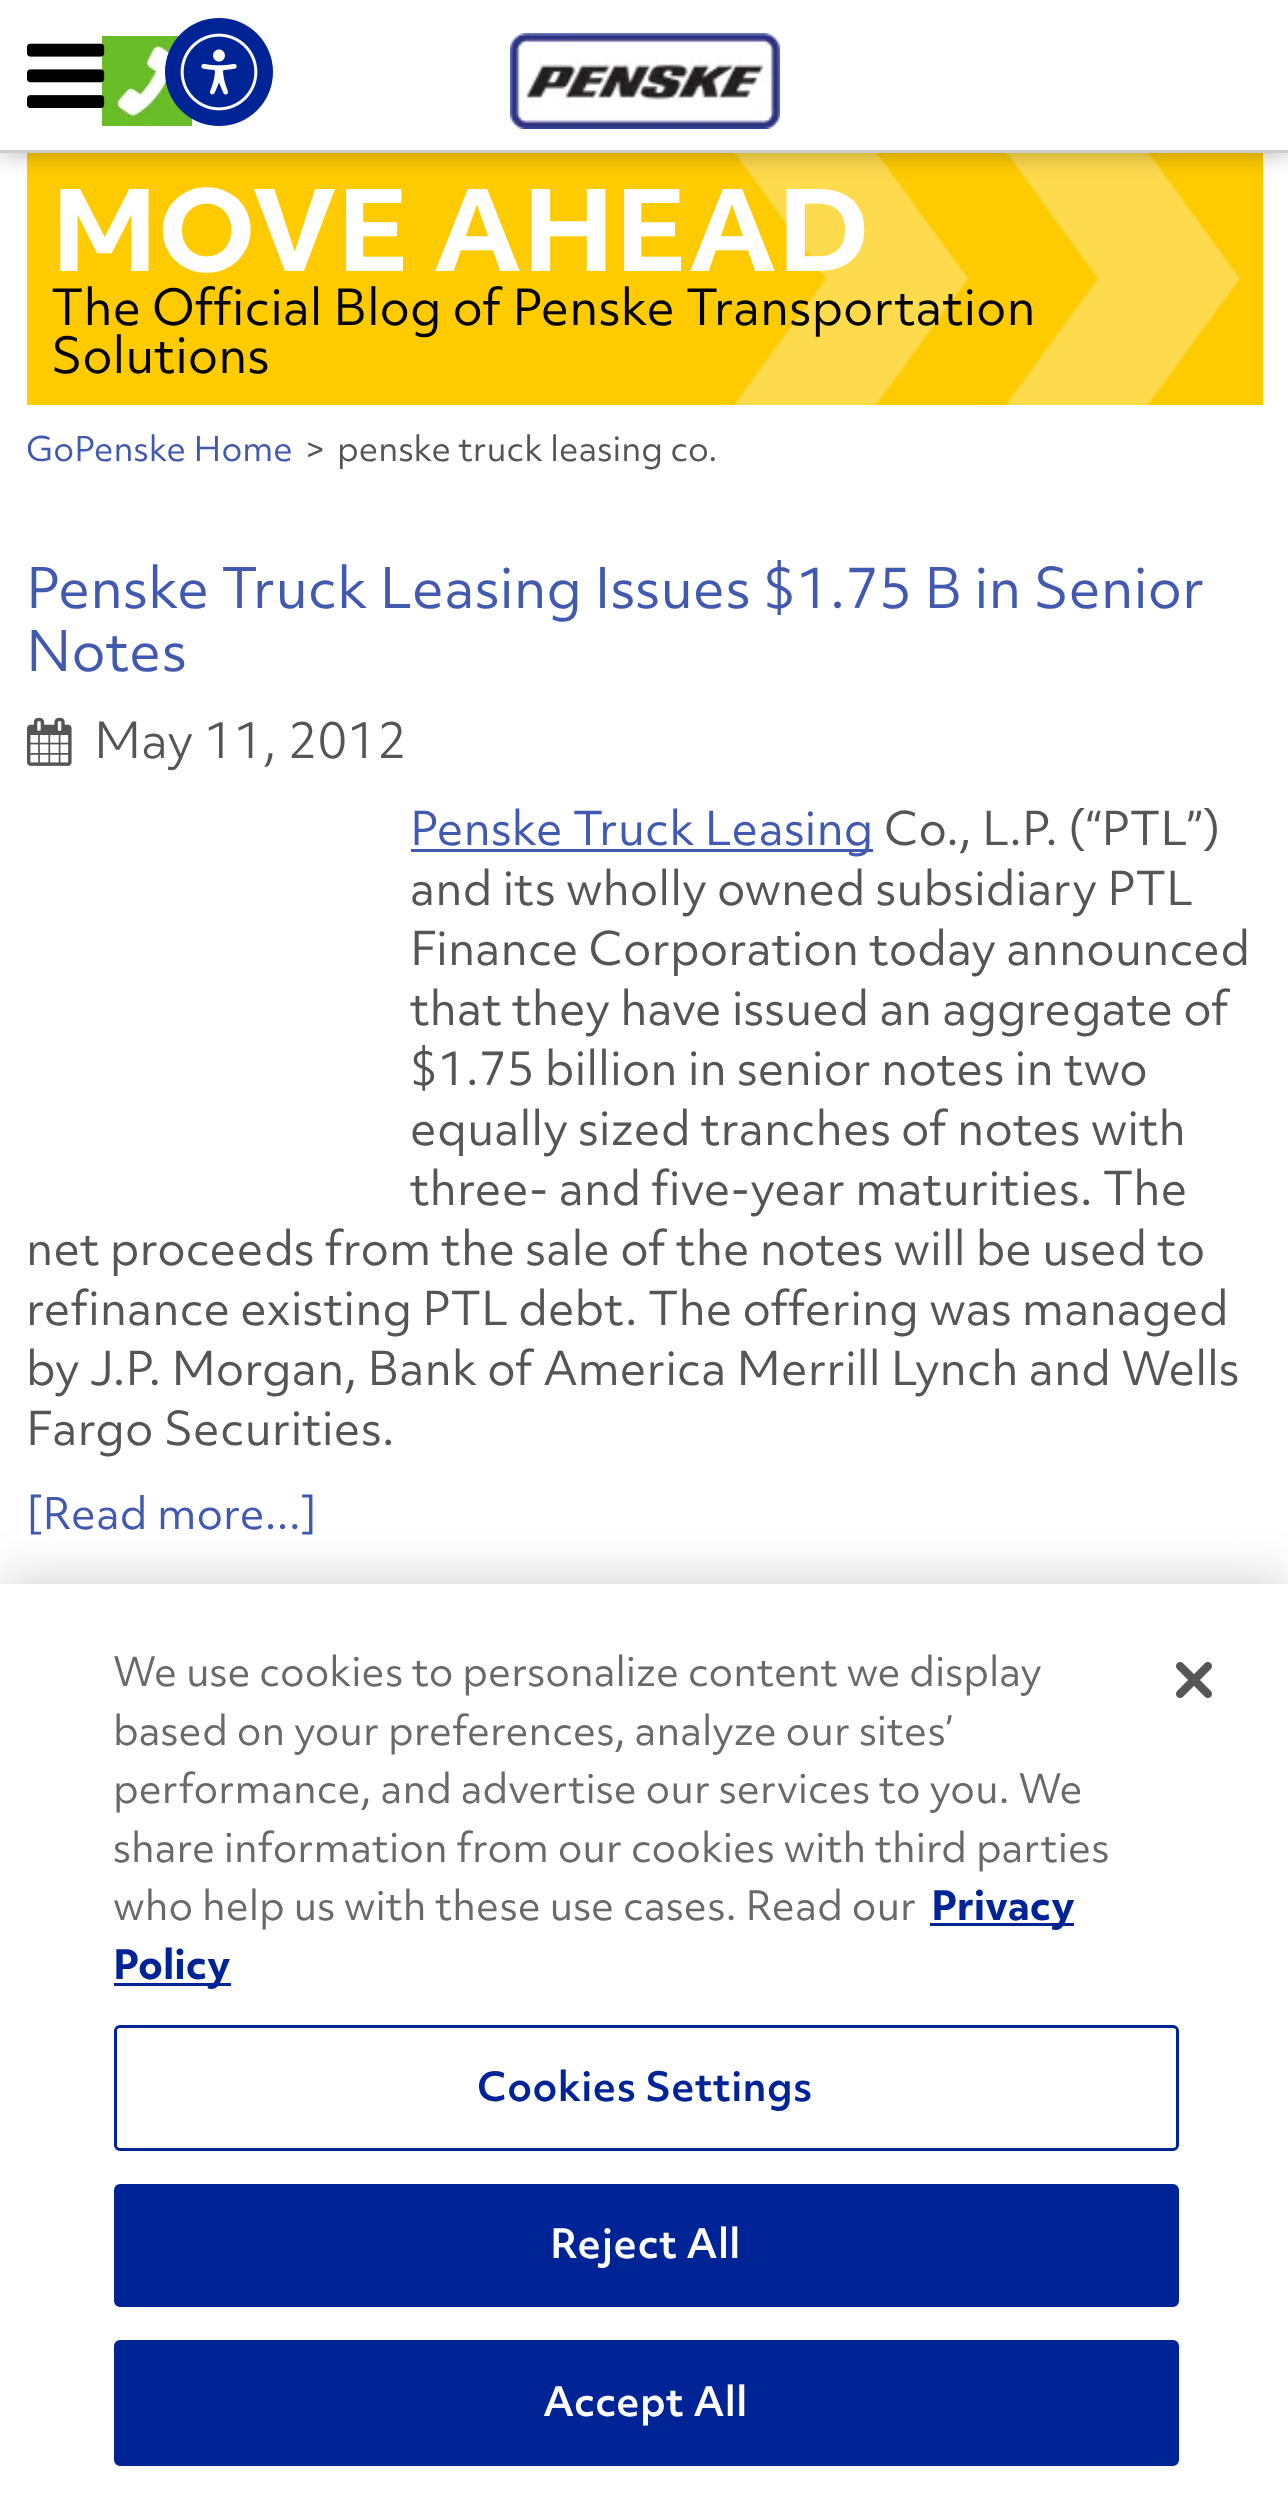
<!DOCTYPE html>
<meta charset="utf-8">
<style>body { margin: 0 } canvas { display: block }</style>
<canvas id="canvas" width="1288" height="2498"></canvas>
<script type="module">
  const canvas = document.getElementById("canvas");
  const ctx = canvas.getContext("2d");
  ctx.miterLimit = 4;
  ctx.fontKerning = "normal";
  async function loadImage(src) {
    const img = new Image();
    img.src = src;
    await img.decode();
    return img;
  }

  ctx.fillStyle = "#ffffff";
  ctx.fillRect(0, 0, 1288, 2498);
  ctx.fillStyle = "#fecb00";
  ctx.fillRect(27, 153, 1236, 252);
  ctx.drawImage(await loadImage("img5.png"), 733, 153, 508, 252);
  ctx.fillStyle = "rgba(0, 0, 0, 0.3)";
  ctx.filter = "blur(12px)";
  ctx.beginPath();
  ctx.rect(0, 0, 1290, 153);
  ctx.fill();
  ctx.filter = "none";
  ctx.fillStyle = "#ffffff";
  ctx.fillRect(0, 0, 1288, 150);
  ctx.fillStyle = "#cccccc";
  ctx.fillRect(0, 150, 1288, 3);
  ctx.drawImage(await loadImage("img2.png"), 102, 36, 90, 90);
  ctx.drawImage(await loadImage("img1.png"), 27, 43, 78, 65);
  ctx.drawImage(await loadImage("img3.png"), 510, 33, 270, 96);
  ctx.fillStyle = "#002496";
  ctx.beginPath();
  ctx.arc(219, 72, 54, 0, Math.PI * 2);
  ctx.fill();
  ctx.drawImage(await loadImage("img4.png"), 180, 33, 78, 78);
  ctx.font = "bold 108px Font";
  ctx.fillStyle = "#ffffff";
  ctx.fillText("MOVE AHEAD", 51, 271);
  ctx.font = "48px Font";
  ctx.fillStyle = "#000000";
  ctx.fillText("The Official Blog of Penske Transportation", 51, 325);
  ctx.fillText("Solutions", 51, 373);
  ctx.font = "33px Font";
  ctx.fillStyle = "#4159af";
  ctx.fillText("GoPenske Home", 26, 461);
  ctx.fillStyle = "#555555";
  ctx.fillText(">", 305, 461);
  ctx.fillText("penske truck leasing co.", 337, 461);
  ctx.font = "54px Font";
  ctx.fillStyle = "#4159af";
  ctx.fillText("Penske Truck Leasing Issues $1.75 B in Senior", 26, 608);
  ctx.fillText("Notes", 26, 671);
  ctx.drawImage(await loadImage("img6.png"), 27, 717, 45, 49);
  ctx.font = "300 48px Font";
  ctx.fillStyle = "#555555";
  ctx.fillText("May 11, 2012", 94, 758);
  ctx.fillStyle = "#4159af";
  ctx.fillRect(411, 849, 462, 3);
  ctx.font = "45px Font";
  ctx.fillText("Penske Truck Leasing", 410, 845);
  ctx.fillStyle = "#555555";
  ctx.fillText("Co., L.P. (“PTL”)", 884, 845);
  ctx.fillText("and its wholly owned subsidiary PTL", 410, 905);
  ctx.fillText("Finance Corporation today announced", 410, 965);
  ctx.fillText("that they have issued an aggregate of", 410, 1025);
  ctx.fillText("$1.75 billion in senior notes in two", 410, 1085);
  ctx.fillText("equally sized tranches of notes with", 410, 1145);
  ctx.fillText("three- and five-year maturities. The", 410, 1205);
  ctx.fillText("net proceeds from the sale of the notes will be used to", 26, 1265);
  ctx.fillText("refinance existing PTL debt. The offering was managed", 26, 1325);
  ctx.fillText("by J.P. Morgan, Bank of America Merrill Lynch and Wells", 26, 1385);
  ctx.fillText("Fargo Securities.", 26, 1445);
  ctx.font = "42px Font";
  ctx.fillStyle = "#4159af";
  ctx.fillText("[Read more...]", 26, 1529);
  ctx.fillStyle = "rgba(0, 0, 0, 0.2)";
  ctx.filter = "blur(27px)";
  ctx.beginPath();
  ctx.rect(0, 1584, 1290, 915);
  ctx.fill();
  ctx.filter = "none";
  ctx.fillStyle = "#ffffff";
  ctx.fillRect(0, 1584, 1288, 914);
  ctx.font = "39px Font";
  ctx.fillStyle = "#696969";
  ctx.fillText("We use cookies to personalize content we display", 113, 1686);
  ctx.fillText("based on your preferences, analyze our sites’", 113, 1745);
  ctx.fillText("performance, and advertise our services to you. We", 113, 1803);
  ctx.fillText("share information from our cookies with third parties", 113, 1862);
  ctx.fillText("who help us with these use cases. Read our", 113, 1920);
  ctx.fillStyle = "#002496";
  ctx.fillRect(930, 1923, 144, 3);
  ctx.font = "bold 39px Font";
  ctx.fillText("Privacy", 931, 1920);
  ctx.fillRect(114, 1983, 117, 3);
  ctx.fillText("Policy", 113, 1979);
  ctx.beginPath();
  ctx.roundRect(115.5, 2026.5, 1062, 123, 4.5);
  ctx.strokeStyle = "#002496";
  ctx.lineWidth = 3;
  ctx.stroke();
  ctx.letterSpacing = "0.4px";
  ctx.font = "600 39px Font";
  ctx.fillText("Cookies Settings", 477, 2101);
  ctx.beginPath();
  ctx.roundRect(115.5, 2185.5, 1062, 120, 4.5);
  ctx.fill();
  ctx.stroke();
  ctx.fillStyle = "#ffffff";
  ctx.fillText("Reject All", 550, 2258);
  ctx.fillStyle = "#002496";
  ctx.beginPath();
  ctx.roundRect(115.5, 2341.5, 1062, 123, 4.5);
  ctx.fill();
  ctx.stroke();
  ctx.fillStyle = "#ffffff";
  ctx.fillText("Accept All", 543, 2416);
  ctx.drawImage(await loadImage("img7.png"), 1176, 1662, 36, 36);
</script>
